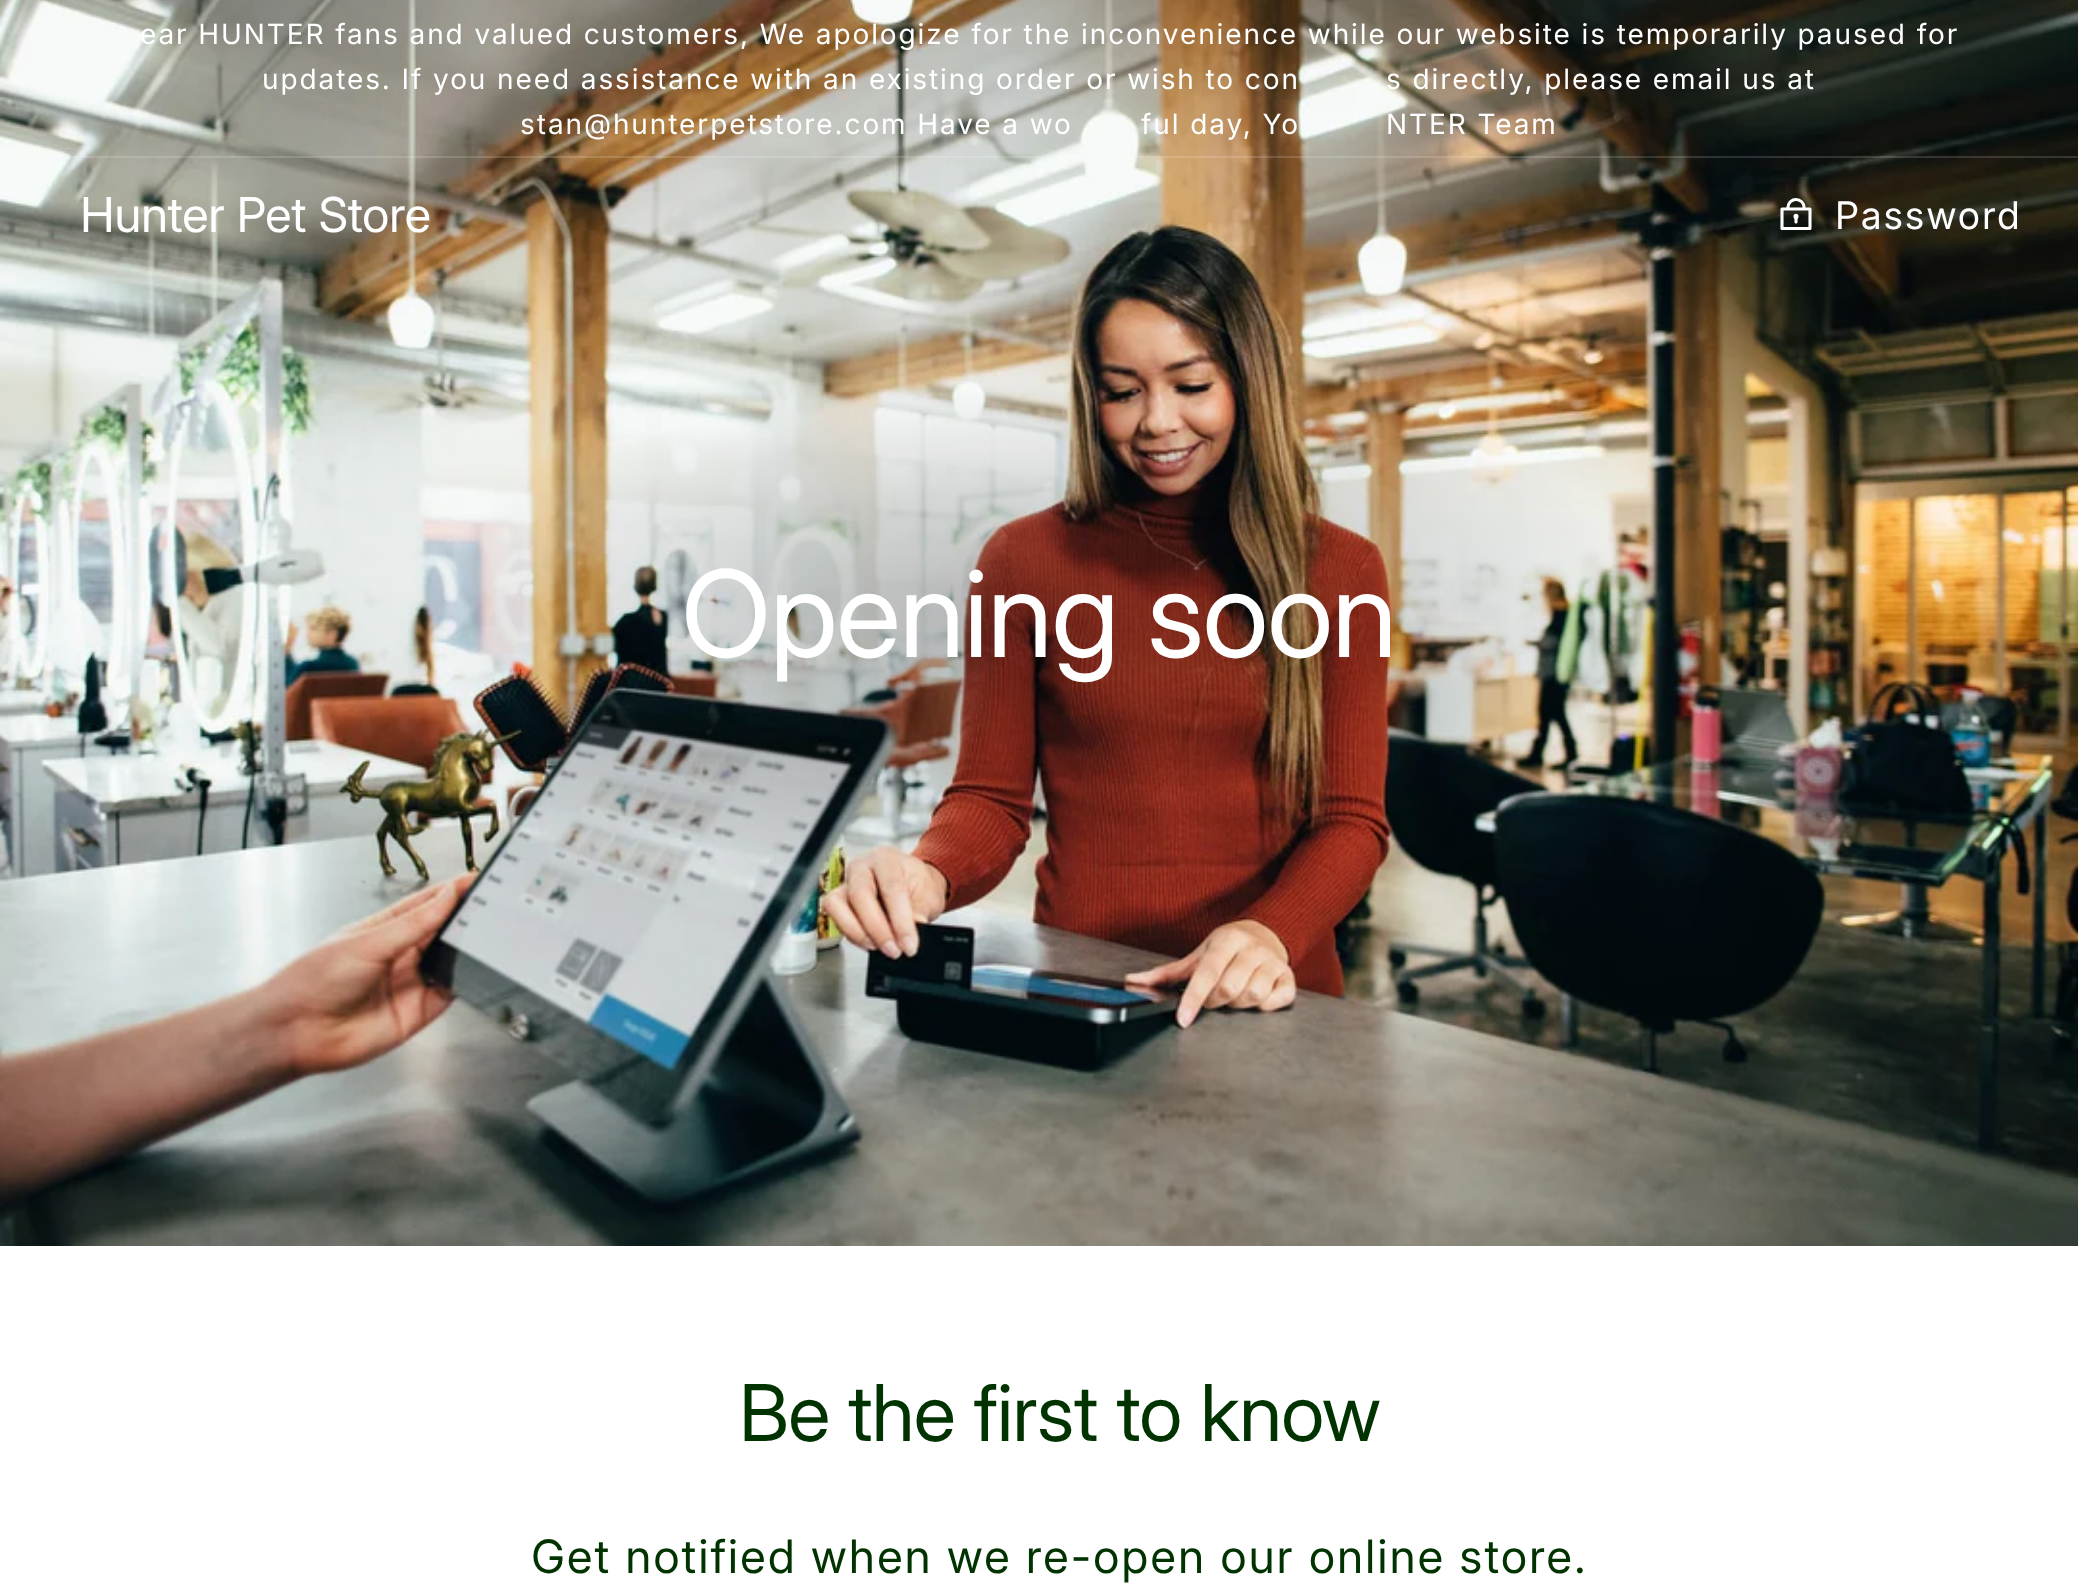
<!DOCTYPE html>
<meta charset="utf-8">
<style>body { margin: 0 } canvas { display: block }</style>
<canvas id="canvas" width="2078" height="1583"></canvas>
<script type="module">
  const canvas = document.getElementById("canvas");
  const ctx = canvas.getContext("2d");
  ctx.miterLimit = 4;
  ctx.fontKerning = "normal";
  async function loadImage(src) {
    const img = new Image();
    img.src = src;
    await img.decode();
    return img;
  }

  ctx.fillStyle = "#ffffff";
  ctx.fillRect(0, 0, 2078, 1583);
  ctx.drawImage(await loadImage("img1.png"), 0, 0, 2078, 1246);
  ctx.letterSpacing = "1.9px";
  ctx.font = "28px 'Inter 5'";
  ctx.fillText("ear HUNTER fans and valued customers, We apologize for the inconvenience while our website is temporarily paused for", 140, 44);
  ctx.fillText("updates. If you need assistance with an existing order or wish to con", 262, 89);
  ctx.fillText("s directly, please email us at", 1386, 89);
  ctx.fillText("stan@hunterpetstore.com Have a wo", 520, 134);
  ctx.fillText("ful day, Yo", 1141, 134);
  ctx.fillText("NTER Team", 1386, 134);
  ctx.fillStyle = "rgba(255, 255, 255, 0.15)";
  ctx.fillRect(69, 156, 2009, 2);
  ctx.letterSpacing = "-0.5px";
  ctx.font = "48px 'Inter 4'";
  ctx.fillStyle = "#ffffff";
  ctx.fillText("Hunter Pet Store", 80, 232);
  ctx.beginPath();
  ctx.moveTo(1788, 209);
  ctx.lineTo(1788, 207);
  ctx.bezierCurveTo(1788, 202.5, 1792, 199.5, 1796, 199.5);
  ctx.bezierCurveTo(1800.5, 199.5, 1804, 203, 1804, 207);
  ctx.lineTo(1804, 209);
  ctx.moveTo(1782, 209);
  ctx.lineTo(1810, 209);
  ctx.lineTo(1810, 228.5);
  ctx.lineTo(1782, 228.5);
  ctx.closePath();
  ctx.moveTo(1796, 217.5);
  ctx.lineTo(1796, 222);
  ctx.strokeStyle = "#ffffff";
  ctx.lineWidth = 3.1;
  ctx.lineCap = "round";
  ctx.lineJoin = "round";
  ctx.stroke();
  ctx.beginPath();
  ctx.arc(1796, 216.4, 1, 0, Math.PI * 2);
  ctx.stroke();
  ctx.letterSpacing = "1.9px";
  ctx.font = "38px 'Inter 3'";
  ctx.fillText("Password", 1835, 229);
  ctx.letterSpacing = "-1.25px";
  ctx.font = "120px Inter";
  ctx.fillText("Opening soon", 681, 657);
  ctx.letterSpacing = "-0.75px";
  ctx.font = "78.25px Inter";
  ctx.fillStyle = "#003300";
  ctx.fillText("Be the first to know", 739, 1441);
  ctx.letterSpacing = "1.9px";
  ctx.font = "46px 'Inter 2'";
  ctx.fillText("Get notified when we re-open our online store.", 531, 1573);
</script>
